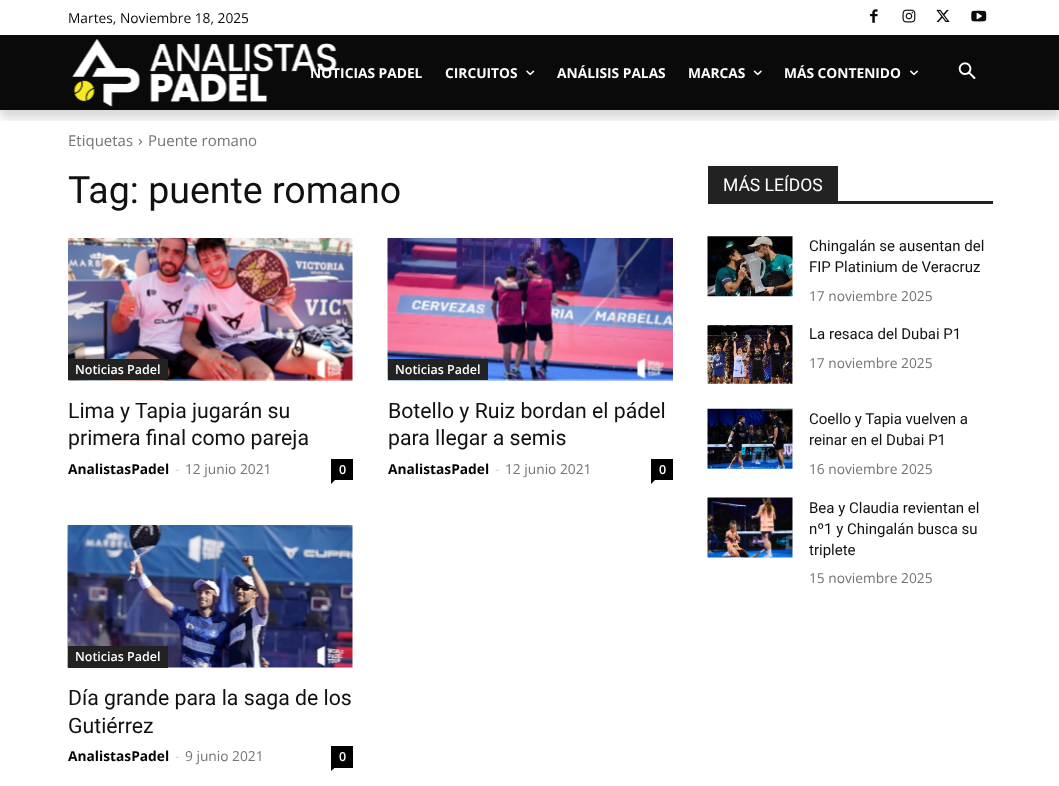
<!DOCTYPE html>
<meta charset="utf-8">
<style>body { margin: 0 } canvas { display: block }</style>
<canvas id="canvas" width="1059" height="786"></canvas>
<script type="module">
  const canvas = document.getElementById("canvas");
  const ctx = canvas.getContext("2d");
  ctx.miterLimit = 4;
  ctx.fontKerning = "normal";
  async function loadImage(src) {
    const img = new Image();
    img.src = src;
    await img.decode();
    return img;
  }

  ctx.fillStyle = "#ffffff";
  ctx.fillRect(0, 0, 1059, 786);
  ctx.drawImage(await loadImage("img1.png"), 870, 9, 8, 14);
  ctx.drawImage(await loadImage("img2.png"), 902, 9, 14, 14);
  ctx.drawImage(await loadImage("img3.png"), 936, 9, 14, 13);
  ctx.drawImage(await loadImage("img4.png"), 971, 10, 16, 12);
  ctx.fillStyle = "#0a0a0a";
  ctx.fillRect(0, 35, 1059, 75);
  ctx.drawImage(await loadImage("img5.png"), 72, 39, 265, 68);
  ctx.save();
  ctx.beginPath();
  ctx.rect(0, 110, 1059, 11);
  ctx.clip();
  ctx.fillStyle = "rgba(0, 0, 0, 0.08)";
  ctx.filter = "blur(5px)";
  ctx.beginPath();
  ctx.rect(0, 8, 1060, 110);
  ctx.fill();
  ctx.filter = "none";
  ctx.restore();
  ctx.font = "13.75px Open Sans";
  ctx.fillText("Martes, Noviembre 18, 2025", 68, 23);
  ctx.save();
  ctx.beginPath();
  ctx.rect(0, 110, 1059, 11);
  ctx.clip();
  ctx.fillStyle = "rgba(0, 0, 0, 0.08)";
  ctx.filter = "blur(5px)";
  ctx.beginPath();
  ctx.rect(0, 43, 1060, 75);
  ctx.fill();
  ctx.filter = "none";
  ctx.restore();
  ctx.font = "bold 13.75px Open Sans";
  ctx.fillStyle = "#ffffff";
  ctx.fillText("NOTICIAS PADEL", 310, 78);
  ctx.fillText("CIRCUITOS", 445, 78);
  ctx.drawImage(await loadImage("img6.png"), 526, 70, 9, 6);
  ctx.fillText("ANÁLISIS PALAS", 557, 78);
  ctx.fillText("MARCAS", 688, 78);
  ctx.drawImage(await loadImage("img7.png"), 753, 70, 9, 6);
  ctx.fillText("MÁS CONTENIDO", 784, 78);
  ctx.drawImage(await loadImage("img8.png"), 910, 70, 8, 6);
  ctx.drawImage(await loadImage("img9.png"), 958, 62, 18, 17);
  ctx.font = "15px Open Sans";
  ctx.fillStyle = "#747474";
  ctx.fillText("Etiquetas", 68, 146);
  ctx.drawImage(await loadImage("img10.png"), 138, 139, 5, 6);
  ctx.fillText("Puente romano", 148, 146);
  ctx.font = "37.5px Roboto";
  ctx.fillStyle = "#111111";
  ctx.fillText("Tag: puente romano", 68, 203);
  ctx.drawImage(await loadImage("img11.png"), 68, 238, 285, 143);
  ctx.fillStyle = "#222222";
  ctx.fillRect(68, 359, 100, 21);
  ctx.font = "600 12.5px Open Sans";
  ctx.fillStyle = "#ffffff";
  ctx.fillText("Noticias Padel", 75, 374);
  ctx.font = "21.25px Roboto";
  ctx.fillStyle = "#111111";
  ctx.fillText("Lima y Tapia jugarán su", 68, 418);
  ctx.fillText("primera final como pareja", 68, 445);
  ctx.font = "bold 13.75px Open Sans";
  ctx.fillStyle = "#000000";
  ctx.fillText("AnalistasPadel", 68, 474);
  ctx.font = "13.75px Open Sans";
  ctx.fillStyle = "#cccccc";
  ctx.fillText("-", 175, 474);
  ctx.fillStyle = "#747474";
  ctx.fillText("12 junio 2021", 185, 474);
  ctx.fillStyle = "#000000";
  ctx.fillRect(331, 459, 22, 21);
  ctx.font = "600 12.5px Open Sans";
  ctx.fillStyle = "#ffffff";
  ctx.fillText("0", 339, 474);
  ctx.fillStyle = "#000000";
  ctx.beginPath();
  ctx.moveTo(331, 480);
  ctx.lineTo(335, 480);
  ctx.lineTo(331, 484);
  ctx.closePath();
  ctx.fill();
  ctx.drawImage(await loadImage("img12.png"), 387, 238, 286, 143);
  ctx.fillStyle = "#222222";
  ctx.fillRect(388, 359, 100, 21);
  ctx.fillStyle = "#ffffff";
  ctx.fillText("Noticias Padel", 395, 374);
  ctx.font = "21.25px Roboto";
  ctx.fillStyle = "#111111";
  ctx.fillText("Botello y Ruiz bordan el pádel", 388, 418);
  ctx.fillText("para llegar a semis", 388, 445);
  ctx.font = "bold 13.75px Open Sans";
  ctx.fillStyle = "#000000";
  ctx.fillText("AnalistasPadel", 388, 474);
  ctx.font = "13.75px Open Sans";
  ctx.fillStyle = "#cccccc";
  ctx.fillText("-", 495, 474);
  ctx.fillStyle = "#747474";
  ctx.fillText("12 junio 2021", 505, 474);
  ctx.fillStyle = "#000000";
  ctx.fillRect(651, 459, 22, 21);
  ctx.font = "600 12.5px Open Sans";
  ctx.fillStyle = "#ffffff";
  ctx.fillText("0", 659, 474);
  ctx.fillStyle = "#000000";
  ctx.beginPath();
  ctx.moveTo(651, 480);
  ctx.lineTo(655, 480);
  ctx.lineTo(651, 484);
  ctx.closePath();
  ctx.fill();
  ctx.drawImage(await loadImage("img13.png"), 67, 525, 286, 143);
  ctx.fillStyle = "#222222";
  ctx.fillRect(68, 646, 100, 22);
  ctx.fillStyle = "#ffffff";
  ctx.fillText("Noticias Padel", 75, 661);
  ctx.font = "21.25px Roboto";
  ctx.fillStyle = "#111111";
  ctx.fillText("Día grande para la saga de los", 68, 705);
  ctx.fillText("Gutiérrez", 68, 733);
  ctx.font = "bold 13.75px Open Sans";
  ctx.fillStyle = "#000000";
  ctx.fillText("AnalistasPadel", 68, 761);
  ctx.font = "13.75px Open Sans";
  ctx.fillStyle = "#cccccc";
  ctx.fillText("-", 175, 761);
  ctx.fillStyle = "#747474";
  ctx.fillText("9 junio 2021", 185, 761);
  ctx.fillStyle = "#000000";
  ctx.fillRect(331, 746, 22, 22);
  ctx.font = "600 12.5px Open Sans";
  ctx.fillStyle = "#ffffff";
  ctx.fillText("0", 339, 761);
  ctx.fillStyle = "#000000";
  ctx.beginPath();
  ctx.moveTo(331, 767.5);
  ctx.lineTo(335, 767.5);
  ctx.lineTo(331, 771);
  ctx.closePath();
  ctx.fill();
  ctx.fillStyle = "#222222";
  ctx.fillRect(708, 201, 285, 3);
  ctx.fillRect(708, 166, 130, 35);
  ctx.font = "17.5px Roboto";
  ctx.fillStyle = "#ffffff";
  ctx.fillText("MÁS LEÍDOS", 723, 191);
  ctx.drawImage(await loadImage("img14.png"), 707, 236, 86, 61);
  ctx.font = "15px Roboto";
  ctx.fillStyle = "#111111";
  ctx.fillText("Chingalán se ausentan del", 809, 251);
  ctx.fillText("FIP Platinium de Veracruz", 809, 272);
  ctx.font = "13.75px Open Sans";
  ctx.fillStyle = "#747474";
  ctx.fillText("17 noviembre 2025", 809, 301);
  ctx.drawImage(await loadImage("img15.png"), 707, 325, 86, 59);
  ctx.font = "15px Roboto";
  ctx.fillStyle = "#111111";
  ctx.fillText("La resaca del Dubai P1", 809, 339);
  ctx.font = "13.75px Open Sans";
  ctx.fillStyle = "#747474";
  ctx.fillText("17 noviembre 2025", 809, 368);
  ctx.drawImage(await loadImage("img16.png"), 707, 408, 86, 61);
  ctx.font = "15px Roboto";
  ctx.fillStyle = "#111111";
  ctx.fillText("Coello y Tapia vuelven a", 809, 424);
  ctx.fillText("reinar en el Dubai P1", 809, 445);
  ctx.font = "13.75px Open Sans";
  ctx.fillStyle = "#747474";
  ctx.fillText("16 noviembre 2025", 809, 474);
  ctx.drawImage(await loadImage("img17.png"), 707, 497, 86, 61);
  ctx.font = "15px Roboto";
  ctx.fillStyle = "#111111";
  ctx.fillText("Bea y Claudia revientan el", 809, 513);
  ctx.fillText("nº1 y Chingalán busca su", 809, 534);
  ctx.fillText("triplete", 809, 555);
  ctx.font = "13.75px Open Sans";
  ctx.fillStyle = "#747474";
  ctx.fillText("15 noviembre 2025", 809, 583);
</script>
